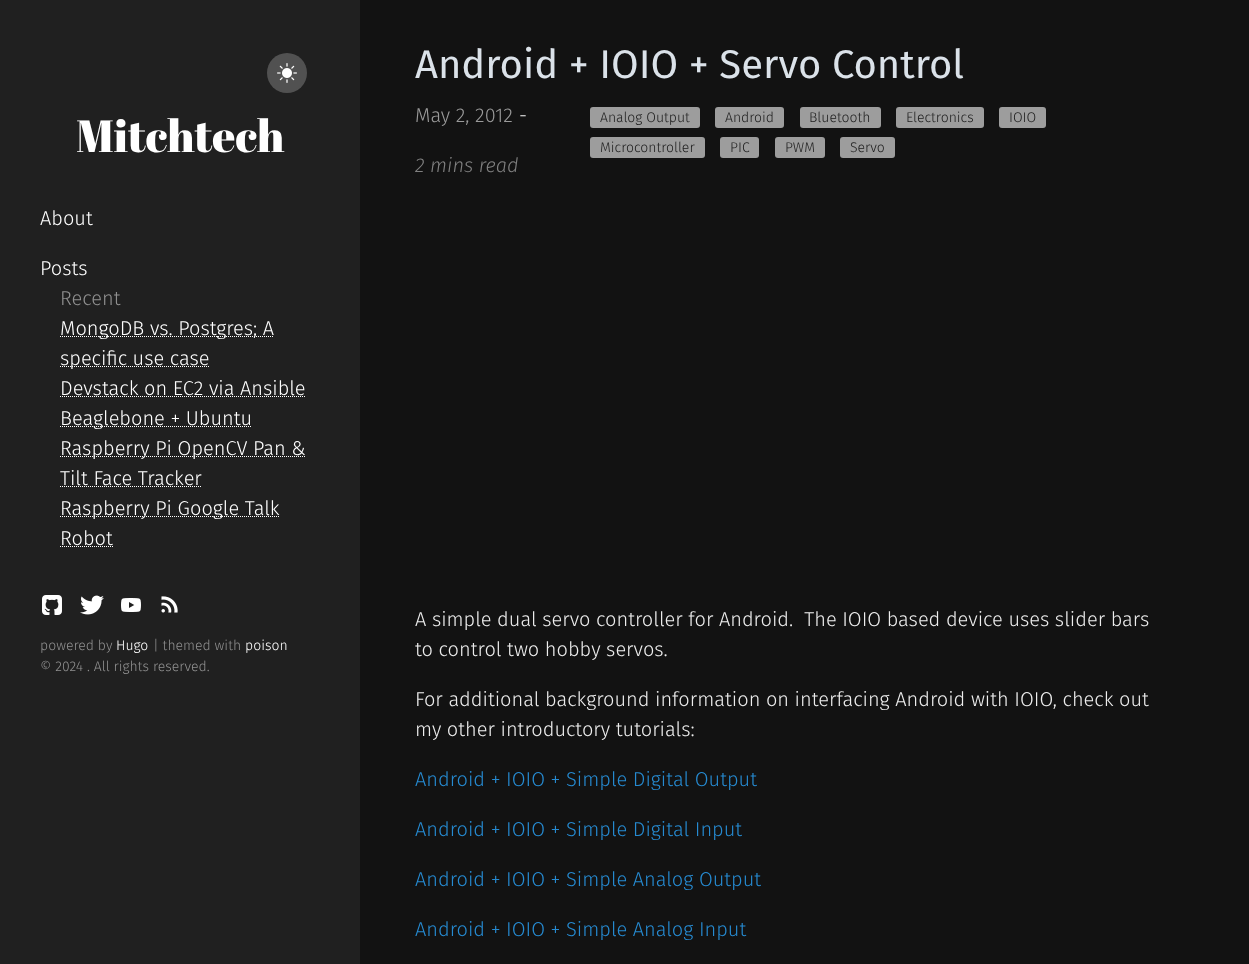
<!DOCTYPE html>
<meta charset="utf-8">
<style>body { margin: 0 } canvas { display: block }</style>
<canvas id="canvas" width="1249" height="964"></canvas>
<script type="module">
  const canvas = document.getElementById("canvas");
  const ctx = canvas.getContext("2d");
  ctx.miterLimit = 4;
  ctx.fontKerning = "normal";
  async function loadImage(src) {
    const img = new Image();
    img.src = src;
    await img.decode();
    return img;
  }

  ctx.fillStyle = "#121212";
  ctx.fillRect(0, 0, 1249, 964);
  ctx.fillStyle = "#202020";
  ctx.fillRect(0, 0, 360, 964);
  ctx.fillStyle = "#515151";
  ctx.beginPath();
  ctx.arc(287, 73, 20, 0, Math.PI * 2);
  ctx.fill();
  ctx.drawImage(await loadImage("img1.png"), 277, 63, 20, 20);
  ctx.font = "45px Abril Fatface";
  ctx.fillStyle = "#ffffff";
  ctx.fillText("Mitchtech", 76, 152);
  ctx.font = "300 20px Fira Sans";
  ctx.fillText("About", 40, 225);
  ctx.fillText("Posts", 40, 275);
  ctx.fillStyle = "#909090";
  ctx.fillText("Recent", 60, 305);
  ctx.beginPath();
  ctx.moveTo(60, 336.5);
  ctx.lineTo(274, 336.5);
  ctx.strokeStyle = "#ffffff";
  ctx.setLineDash([1, 1]);
  ctx.stroke();
  ctx.fillStyle = "#ffffff";
  ctx.fillText("MongoDB vs. Postgres; A", 60, 335);
  ctx.beginPath();
  ctx.moveTo(60, 366.5);
  ctx.lineTo(209.5, 366.5);
  ctx.stroke();
  ctx.fillText("specific use case", 60, 365);
  ctx.fillText("Devstack on EC2 via Ansible", 60, 395);
  ctx.beginPath();
  ctx.moveTo(60, 396.5);
  ctx.lineTo(305.5, 396.5);
  ctx.stroke();
  ctx.beginPath();
  ctx.moveTo(60, 426.5);
  ctx.lineTo(252, 426.5);
  ctx.stroke();
  ctx.fillText("Beaglebone + Ubuntu", 60, 425);
  ctx.beginPath();
  ctx.moveTo(60, 456.5);
  ctx.lineTo(305.5, 456.5);
  ctx.stroke();
  ctx.fillText("Raspberry Pi OpenCV Pan &", 60, 455);
  ctx.fillText("Tilt Face Tracker", 60, 485);
  ctx.beginPath();
  ctx.moveTo(60, 486.5);
  ctx.lineTo(202, 486.5);
  ctx.stroke();
  ctx.beginPath();
  ctx.moveTo(60, 516.5);
  ctx.lineTo(279.5, 516.5);
  ctx.stroke();
  ctx.fillText("Raspberry Pi Google Talk", 60, 515);
  ctx.fillText("Robot", 60, 545);
  ctx.beginPath();
  ctx.moveTo(60, 546.5);
  ctx.lineTo(113, 546.5);
  ctx.stroke();
  ctx.drawImage(await loadImage("img2.png"), 42, 595, 20, 20);
  ctx.drawImage(await loadImage("img3.png"), 80, 595, 24, 20);
  ctx.drawImage(await loadImage("img4.png"), 121, 598, 20, 14);
  ctx.drawImage(await loadImage("img5.png"), 161, 596, 17, 17);
  ctx.font = "300 14px Fira Sans";
  ctx.fillStyle = "#909090";
  ctx.fillText("powered by", 40, 650);
  ctx.fillStyle = "#ffffff";
  ctx.fillText("Hugo", 116, 650);
  ctx.fillStyle = "#909090";
  ctx.fillText("| themed with", 153, 650);
  ctx.fillStyle = "#ffffff";
  ctx.fillText("poison", 245, 650);
  ctx.fillStyle = "#909090";
  ctx.fillText("© 2024 . All rights reserved.", 40, 671);
  ctx.font = "40px Fira Sans";
  ctx.fillStyle = "#dbe2e9";
  ctx.fillText("Android + IOIO + Servo Control", 415, 78);
  ctx.font = "300 20px Fira Sans";
  ctx.fillStyle = "#9a9a9a";
  ctx.fillText("May 2, 2012", 415, 122);
  ctx.fillStyle = "#eeeeee";
  ctx.fillText("-", 519, 122);
  ctx.font = "italic 300 20px Fira Sans";
  ctx.fillStyle = "#808080";
  ctx.fillText("2 mins read", 415, 172);
  ctx.fillStyle = "#9d9d9d";
  ctx.beginPath();
  ctx.roundRect(590, 107, 110, 21, 3);
  ctx.fill();
  ctx.font = "300 14px Fira Sans";
  ctx.fillStyle = "#202020";
  ctx.fillText("Analog Output", 600, 122);
  ctx.fillStyle = "#9d9d9d";
  ctx.beginPath();
  ctx.roundRect(715, 107, 69, 21, 3);
  ctx.fill();
  ctx.fillStyle = "#202020";
  ctx.fillText("Android", 725, 122);
  ctx.fillStyle = "#9d9d9d";
  ctx.beginPath();
  ctx.roundRect(800, 107, 81, 21, 3);
  ctx.fill();
  ctx.fillStyle = "#202020";
  ctx.fillText("Bluetooth", 809, 122);
  ctx.fillStyle = "#9d9d9d";
  ctx.beginPath();
  ctx.roundRect(896, 107, 88, 21, 3);
  ctx.fill();
  ctx.fillStyle = "#202020";
  ctx.fillText("Electronics", 906, 122);
  ctx.fillStyle = "#9d9d9d";
  ctx.beginPath();
  ctx.roundRect(999, 107, 47, 21, 3);
  ctx.fill();
  ctx.fillStyle = "#202020";
  ctx.fillText("IOIO", 1009, 122);
  ctx.fillStyle = "#9d9d9d";
  ctx.beginPath();
  ctx.roundRect(590, 137, 115, 21, 3);
  ctx.fill();
  ctx.fillStyle = "#202020";
  ctx.fillText("Microcontroller", 600, 152);
  ctx.fillStyle = "#9d9d9d";
  ctx.beginPath();
  ctx.roundRect(720, 137, 39, 21, 3);
  ctx.fill();
  ctx.fillStyle = "#202020";
  ctx.fillText("PIC", 730, 152);
  ctx.fillStyle = "#9d9d9d";
  ctx.beginPath();
  ctx.roundRect(775, 137, 50, 21, 3);
  ctx.fill();
  ctx.fillStyle = "#202020";
  ctx.fillText("PWM", 785, 152);
  ctx.fillStyle = "#9d9d9d";
  ctx.beginPath();
  ctx.roundRect(840, 137, 55, 21, 3);
  ctx.fill();
  ctx.fillStyle = "#202020";
  ctx.fillText("Servo", 850, 152);
  ctx.font = "300 20px Fira Sans";
  ctx.fillStyle = "#eeeeee";
  ctx.fillText("A simple dual servo controller for Android.  The IOIO based device uses slider bars", 415, 626);
  ctx.fillText("to control two hobby servos.", 415, 656);
  ctx.fillText("For additional background information on interfacing Android with IOIO, check out", 415, 706);
  ctx.fillText("my other introductory tutorials:", 415, 736);
  ctx.fillStyle = "#268bd2";
  ctx.fillText("Android + IOIO + Simple Digital Output", 415, 786);
  ctx.fillText("Android + IOIO + Simple Digital Input", 415, 836);
  ctx.fillText("Android + IOIO + Simple Analog Output", 415, 886);
  ctx.fillText("Android + IOIO + Simple Analog Input", 415, 936);
</script>
